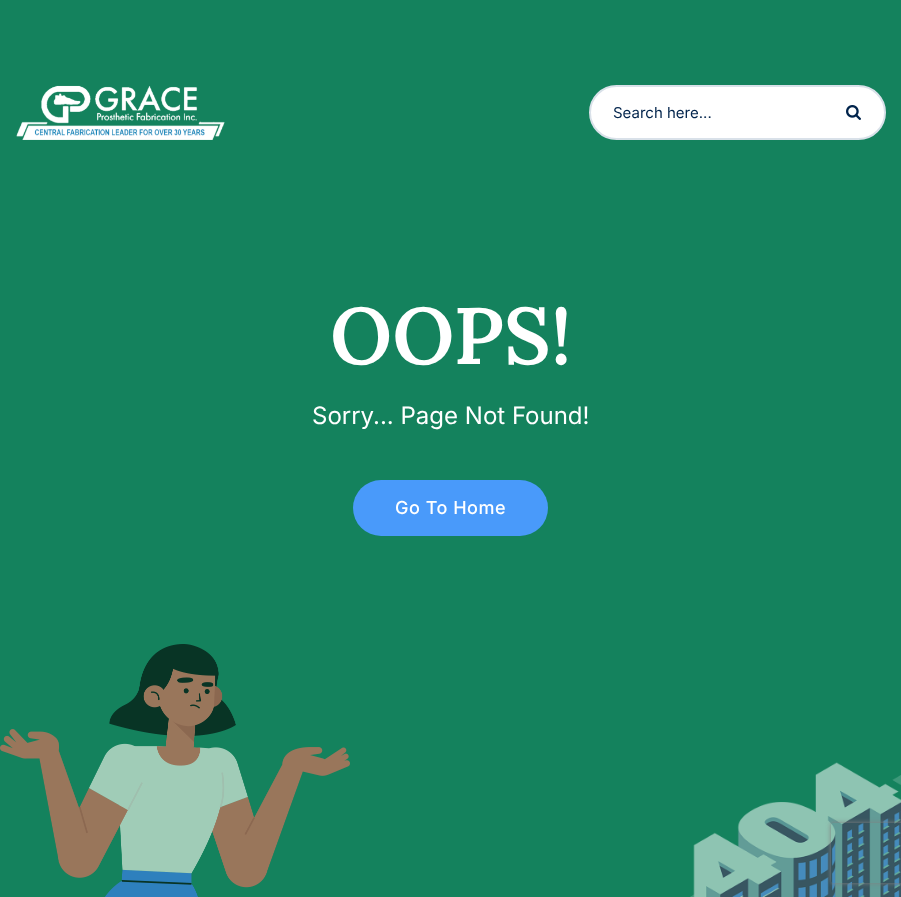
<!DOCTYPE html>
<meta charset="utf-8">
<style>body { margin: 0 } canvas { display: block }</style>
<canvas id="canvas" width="901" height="897"></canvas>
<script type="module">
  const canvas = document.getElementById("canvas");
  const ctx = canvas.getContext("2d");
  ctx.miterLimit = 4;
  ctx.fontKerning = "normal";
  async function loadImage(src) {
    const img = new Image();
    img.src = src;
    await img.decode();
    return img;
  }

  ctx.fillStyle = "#14825d";
  ctx.fillRect(0, 0, 901, 897);
  ctx.drawImage(await loadImage("img1.png"), 16, 85, 209, 55);
  ctx.fillStyle = "#ffffff";
  ctx.beginPath();
  ctx.roundRect(590, 86, 295, 53, 26.5);
  ctx.fill();
  ctx.strokeStyle = "#d9e1e9";
  ctx.lineWidth = 2;
  ctx.stroke();
  ctx.font = "15px Inter";
  ctx.fillStyle = "#00234b";
  ctx.fillText("Search here...", 613, 118);
  ctx.drawImage(await loadImage("img2.png"), 846, 105, 15, 15);
  ctx.font = "600 80px Lora";
  ctx.fillStyle = "#ffffff";
  ctx.fillText("OOPS!", 330, 364);
  ctx.font = "24px Inter";
  ctx.fillText("Sorry... Page Not Found!", 312, 424);
  ctx.fillStyle = "#499afa";
  ctx.beginPath();
  ctx.roundRect(353, 480, 195, 56, 28);
  ctx.fill();
  ctx.letterSpacing = "0.5px";
  ctx.font = "500 18px Inter";
  ctx.fillStyle = "#ffffff";
  ctx.fillText("Go To Home", 395, 514);
  ctx.drawImage(await loadImage("img3.png"), 0, 644, 350, 253);
  ctx.drawImage(await loadImage("img4.png"), 690, 762, 211, 135);
  ctx.save();
  ctx.beginPath();
  ctx.moveTo(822, 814);
  ctx.lineTo(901, 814);
  ctx.lineTo(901, 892);
  ctx.lineTo(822, 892);
  ctx.closePath();
  ctx.moveTo(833, 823);
  ctx.lineTo(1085, 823);
  ctx.bezierCurveTo(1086, 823, 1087, 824, 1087, 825);
  ctx.lineTo(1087, 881);
  ctx.bezierCurveTo(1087, 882, 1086, 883, 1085, 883);
  ctx.lineTo(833, 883);
  ctx.bezierCurveTo(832, 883, 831, 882, 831, 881);
  ctx.lineTo(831, 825);
  ctx.bezierCurveTo(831, 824, 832, 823, 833, 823);
  ctx.closePath();
  ctx.clip("evenodd");
  ctx.fillStyle = "#808080";
  ctx.filter = "blur(2.5px)";
  ctx.beginPath();
  ctx.roundRect(831, 823, 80, 60, 2);
  ctx.fill();
  ctx.filter = "none";
  ctx.restore();
</script>
